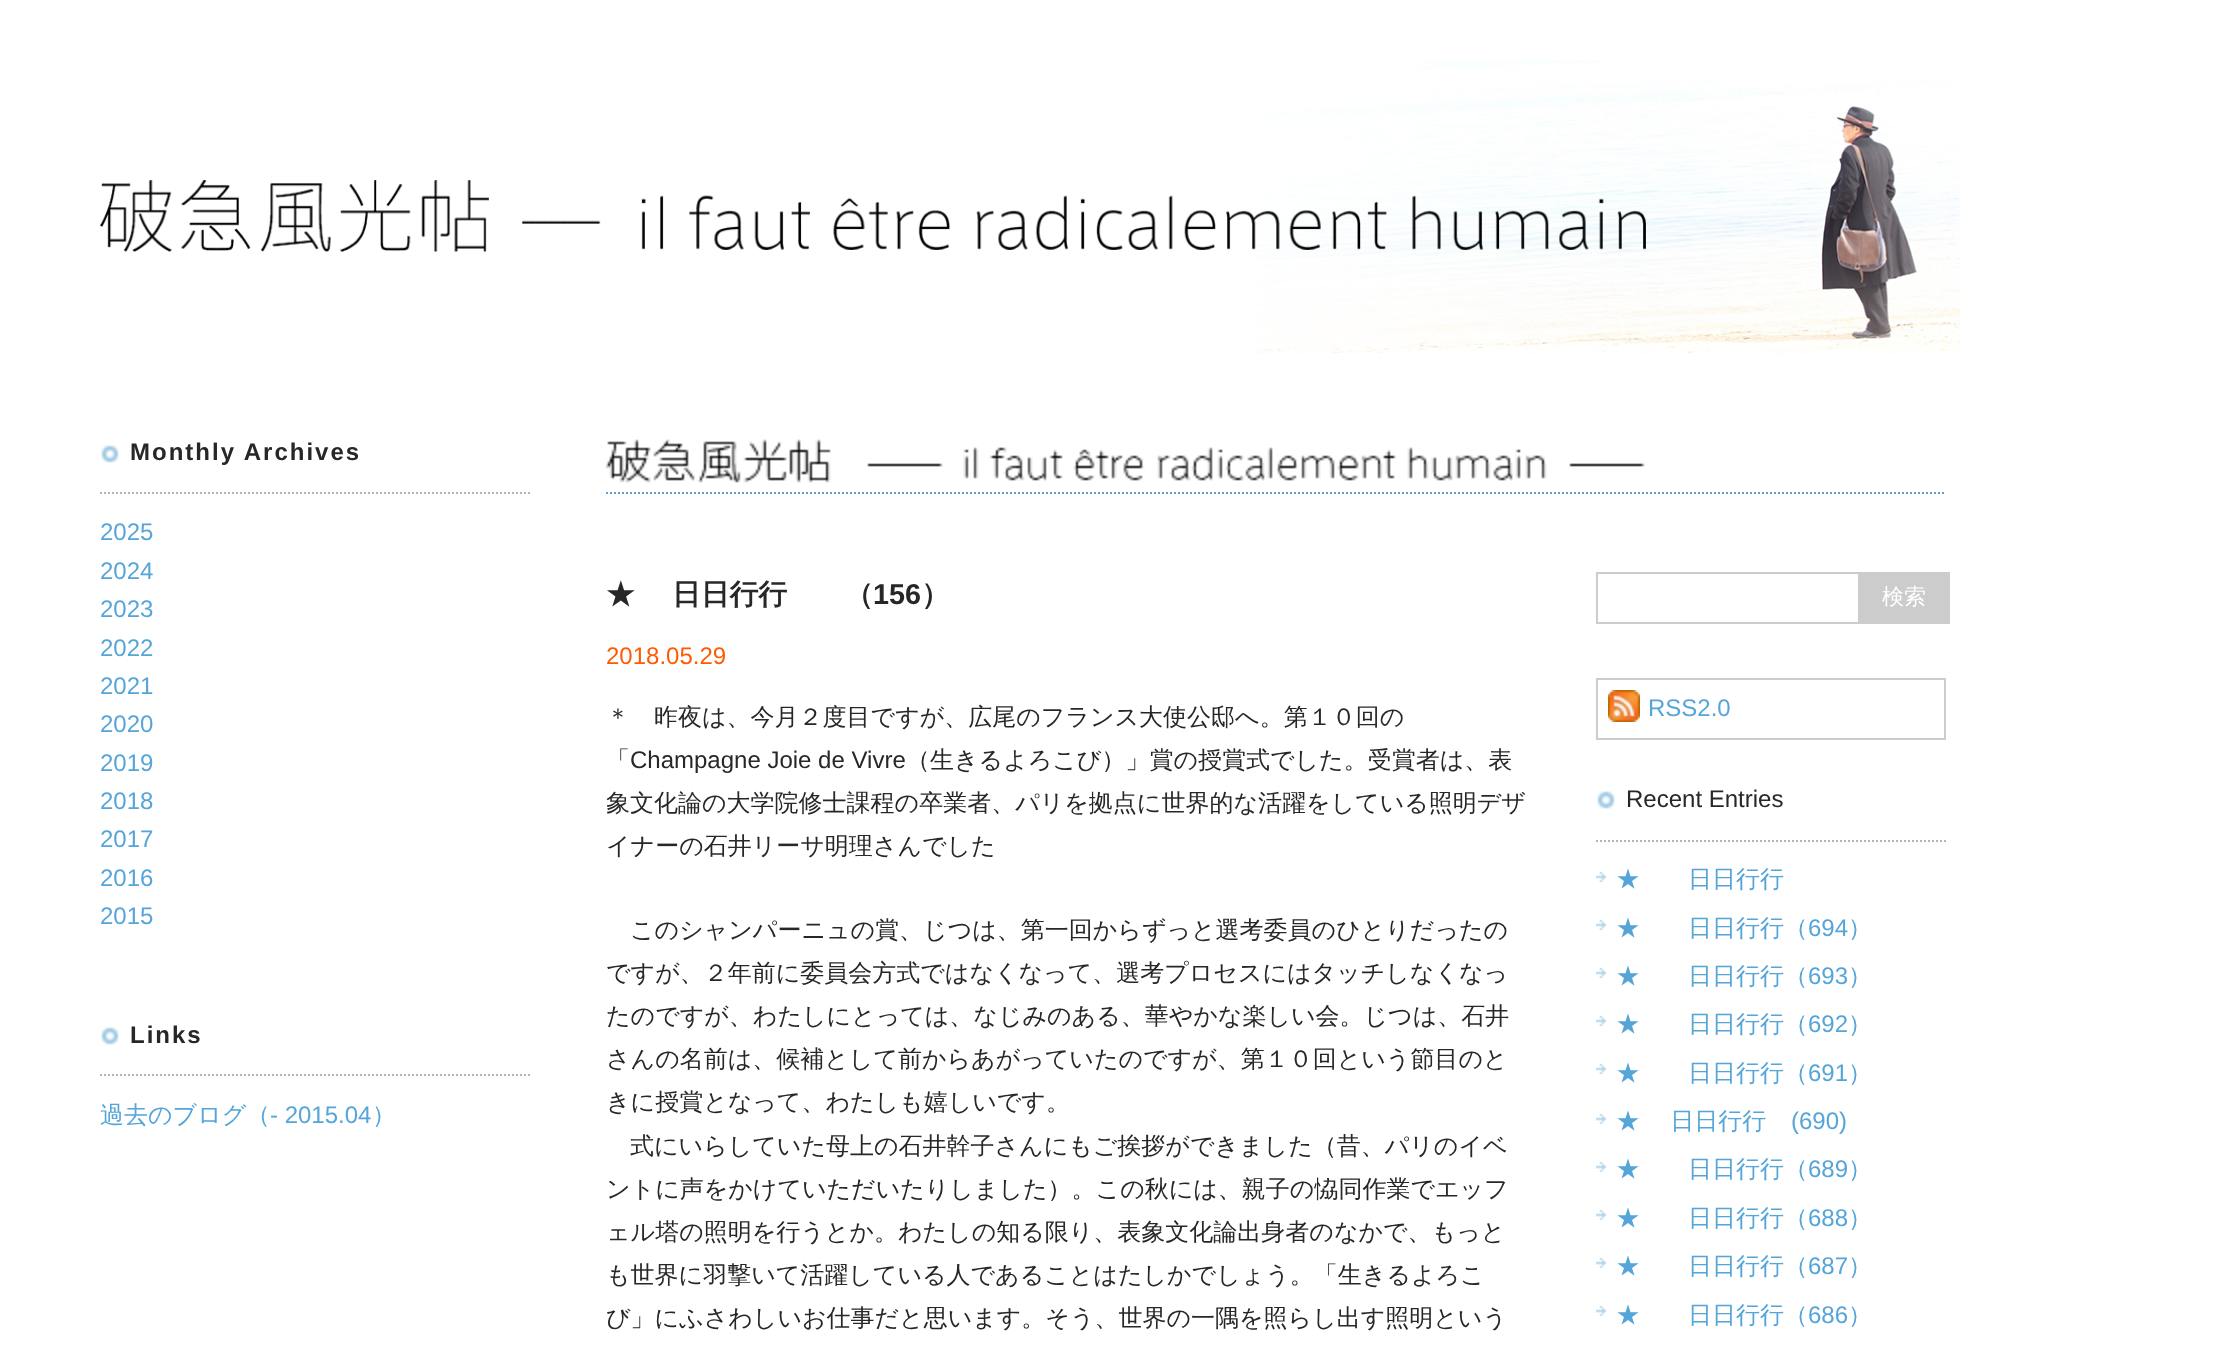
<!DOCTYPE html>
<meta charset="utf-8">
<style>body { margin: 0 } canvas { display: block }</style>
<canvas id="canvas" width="2219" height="1358"></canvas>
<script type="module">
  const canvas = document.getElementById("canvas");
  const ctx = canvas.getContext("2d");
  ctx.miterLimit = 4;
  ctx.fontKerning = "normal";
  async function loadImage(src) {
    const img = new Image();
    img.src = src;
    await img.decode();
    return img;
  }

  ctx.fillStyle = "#ffffff";
  ctx.fillRect(0, 0, 2219, 1358);
  ctx.drawImage(await loadImage("img1.png"), 1255, 60, 705, 294);
  ctx.drawImage(await loadImage("img2.png"), 100, 180, 1546, 72);
  ctx.drawImage(await loadImage("img3.png"), 101, 445, 18, 18);
  ctx.letterSpacing = "2px";
  ctx.font = "bold 24px Liberation Sans";
  ctx.fillStyle = "#272727";
  ctx.fillText("Monthly Archives", 130, 460);
  ctx.beginPath();
  ctx.moveTo(100, 493);
  ctx.lineTo(530, 493);
  ctx.strokeStyle = "#b3b3b3";
  ctx.lineWidth = 2;
  ctx.setLineDash([2, 2]);
  ctx.stroke();
  ctx.letterSpacing = "0px";
  ctx.font = "24px Liberation Sans";
  ctx.fillStyle = "#56a5d9";
  ctx.fillText("2025", 100, 540);
  ctx.fillText("2024", 100, 579);
  ctx.fillText("2023", 100, 617);
  ctx.fillText("2022", 100, 656);
  ctx.fillText("2021", 100, 694);
  ctx.fillText("2020", 100, 732);
  ctx.fillText("2019", 100, 771);
  ctx.fillText("2018", 100, 809);
  ctx.fillText("2017", 100, 847);
  ctx.fillText("2016", 100, 886);
  ctx.fillText("2015", 100, 924);
  ctx.drawImage(await loadImage("img3.png"), 101, 1027, 18, 18);
  ctx.letterSpacing = "2px";
  ctx.font = "bold 24px Liberation Sans";
  ctx.fillStyle = "#272727";
  ctx.fillText("Links", 130, 1043);
  ctx.beginPath();
  ctx.moveTo(100, 1075);
  ctx.lineTo(530, 1075);
  ctx.stroke();
  ctx.letterSpacing = "0px";
  ctx.font = "500 24px WenQuanYi Zen Hei";
  ctx.fillStyle = "#56a5d9";
  ctx.fillText("過去のブログ（", 100, 1123);
  ctx.font = "24px Liberation Sans";
  ctx.fillText("- 2015.04", 270, 1123);
  ctx.font = "500 24px WenQuanYi Zen Hei";
  ctx.fillText("）", 372, 1123);
  ctx.beginPath();
  ctx.moveTo(606, 493);
  ctx.lineTo(1946, 493);
  ctx.strokeStyle = "#619fcf";
  ctx.stroke();
  ctx.drawImage(await loadImage("img4.png"), 606, 439, 1039, 44);
  ctx.font = "bold 28.75px WenQuanYi Zen Hei";
  ctx.fillStyle = "#272727";
  ctx.fillText("★", 606, 604);
  ctx.fillText("日日行行　　（", 672, 604);
  ctx.font = "bold 28.75px Liberation Sans";
  ctx.fillText("156", 873, 604);
  ctx.font = "bold 28.75px WenQuanYi Zen Hei";
  ctx.fillText("）", 921, 604);
  ctx.font = "24px Liberation Sans";
  ctx.fillStyle = "#ff5a00";
  ctx.fillText("2018.05.29", 606, 664);
  ctx.font = "500 24px WenQuanYi Zen Hei";
  ctx.fillStyle = "#272727";
  ctx.fillText("＊　昨夜は、今月２度目ですが、広尾のフランス大使公邸へ。第１０回の", 606, 725);
  ctx.fillText("「", 606, 768);
  ctx.font = "24px Liberation Sans";
  ctx.fillText("Champagne Joie de Vivre", 630, 768);
  ctx.font = "500 24px WenQuanYi Zen Hei";
  ctx.fillText("（生きるよろこび）」賞の授賞式でした。受賞者は、表", 906, 768);
  ctx.fillText("象文化論の大学院修士課程の卒業者、パリを拠点に世界的な活躍をしている照明デザ", 606, 811);
  ctx.fillText("イナーの石井リーサ明理さんでした", 606, 854);
  ctx.fillText("このシャンパーニュの賞、じつは、第一回からずっと選考委員のひとりだったの", 630, 938);
  ctx.fillText("ですが、２年前に委員会方式ではなくなって、選考プロセスにはタッチしなくなっ", 606, 981);
  ctx.fillText("たのですが、わたしにとっては、なじみのある、華やかな楽しい会。じつは、石井", 606, 1024);
  ctx.fillText("さんの名前は、候補として前からあがっていたのですが、第１０回という節目のと", 606, 1067);
  ctx.fillText("きに授賞となって、わたしも嬉しいです。", 606, 1110);
  ctx.fillText("式にいらしていた母上の石井幹子さんにもご挨拶ができました（昔、パリのイベ", 630, 1154);
  ctx.fillText("ントに声をかけていただいたりしました）。この秋には、親子の恊同作業でエッフ", 606, 1197);
  ctx.fillText("ェル塔の照明を行うとか。わたしの知る限り、表象文化論出身者のなかで、もっと", 606, 1240);
  ctx.fillText("も世界に羽撃いて活躍している人であることはたしかでしょう。「生きるよろこ", 606, 1283);
  ctx.fillText("び」にふさわしいお仕事だと思います。そう、世界の一隅を照らし出す照明という", 606, 1326);
  ctx.strokeStyle = "#cccccc";
  ctx.setLineDash([]);
  ctx.strokeRect(1597, 573, 262, 50);
  ctx.fillStyle = "#cccccc";
  ctx.fillRect(1860, 572, 90, 52);
  ctx.font = "500 22px WenQuanYi Zen Hei";
  ctx.fillStyle = "#ffffff";
  ctx.fillText("検索", 1882, 604);
  ctx.drawImage(await loadImage("img5.png"), 1608, 690, 32, 32);
  ctx.strokeRect(1597, 679, 348, 60);
  ctx.font = "24px Liberation Sans";
  ctx.fillStyle = "#56a5d9";
  ctx.fillText("RSS2.0", 1648, 716);
  ctx.drawImage(await loadImage("img3.png"), 1597, 791, 18, 18);
  ctx.fillStyle = "#272727";
  ctx.fillText("Recent Entries", 1626, 807);
  ctx.beginPath();
  ctx.moveTo(1596, 841);
  ctx.lineTo(1946, 841);
  ctx.strokeStyle = "#b3b3b3";
  ctx.setLineDash([2, 2]);
  ctx.stroke();
  ctx.drawImage(await loadImage("img6.png"), 1596, 872, 10, 10);
  ctx.font = "500 24px WenQuanYi Zen Hei";
  ctx.fillStyle = "#56a5d9";
  ctx.fillText("★　　日日行行", 1616, 887);
  ctx.drawImage(await loadImage("img6.png"), 1596, 920, 10, 10);
  ctx.fillText("★　　日日行行（", 1616, 936);
  ctx.font = "24px Liberation Sans";
  ctx.fillText("694", 1808, 936);
  ctx.font = "500 24px WenQuanYi Zen Hei";
  ctx.fillText("）", 1848, 936);
  ctx.drawImage(await loadImage("img6.png"), 1596, 968, 10, 10);
  ctx.fillText("★　　日日行行（", 1616, 984);
  ctx.font = "24px Liberation Sans";
  ctx.fillText("693", 1808, 984);
  ctx.font = "500 24px WenQuanYi Zen Hei";
  ctx.fillText("）", 1848, 984);
  ctx.drawImage(await loadImage("img6.png"), 1596, 1016, 10, 10);
  ctx.fillText("★　　日日行行（", 1616, 1032);
  ctx.font = "24px Liberation Sans";
  ctx.fillText("692", 1808, 1032);
  ctx.font = "500 24px WenQuanYi Zen Hei";
  ctx.fillText("）", 1848, 1032);
  ctx.drawImage(await loadImage("img6.png"), 1596, 1064, 10, 10);
  ctx.fillText("★　　日日行行（", 1616, 1081);
  ctx.font = "24px Liberation Sans";
  ctx.fillText("691", 1808, 1081);
  ctx.font = "500 24px WenQuanYi Zen Hei";
  ctx.fillText("）", 1848, 1081);
  ctx.drawImage(await loadImage("img6.png"), 1596, 1114, 10, 10);
  ctx.wordSpacing = "-1px";
  ctx.fillText("★　 日日行行", 1616, 1129);
  ctx.wordSpacing = "0px";
  ctx.font = "24px Liberation Sans";
  ctx.fillText("(690)", 1791, 1129);
  ctx.drawImage(await loadImage("img6.png"), 1596, 1162, 10, 10);
  ctx.font = "500 24px WenQuanYi Zen Hei";
  ctx.fillText("★　　日日行行（", 1616, 1177);
  ctx.font = "24px Liberation Sans";
  ctx.fillText("689", 1808, 1177);
  ctx.font = "500 24px WenQuanYi Zen Hei";
  ctx.fillText("）", 1848, 1177);
  ctx.drawImage(await loadImage("img6.png"), 1596, 1210, 10, 10);
  ctx.fillText("★　　日日行行（", 1616, 1226);
  ctx.font = "24px Liberation Sans";
  ctx.fillText("688", 1808, 1226);
  ctx.font = "500 24px WenQuanYi Zen Hei";
  ctx.fillText("）", 1848, 1226);
  ctx.drawImage(await loadImage("img6.png"), 1596, 1258, 10, 10);
  ctx.fillText("★　　日日行行（", 1616, 1274);
  ctx.font = "24px Liberation Sans";
  ctx.fillText("687", 1808, 1274);
  ctx.font = "500 24px WenQuanYi Zen Hei";
  ctx.fillText("）", 1848, 1274);
  ctx.drawImage(await loadImage("img6.png"), 1596, 1306, 10, 10);
  ctx.fillText("★　　日日行行（", 1616, 1323);
  ctx.font = "24px Liberation Sans";
  ctx.fillText("686", 1808, 1323);
  ctx.font = "500 24px WenQuanYi Zen Hei";
  ctx.fillText("）", 1848, 1323);
</script>
